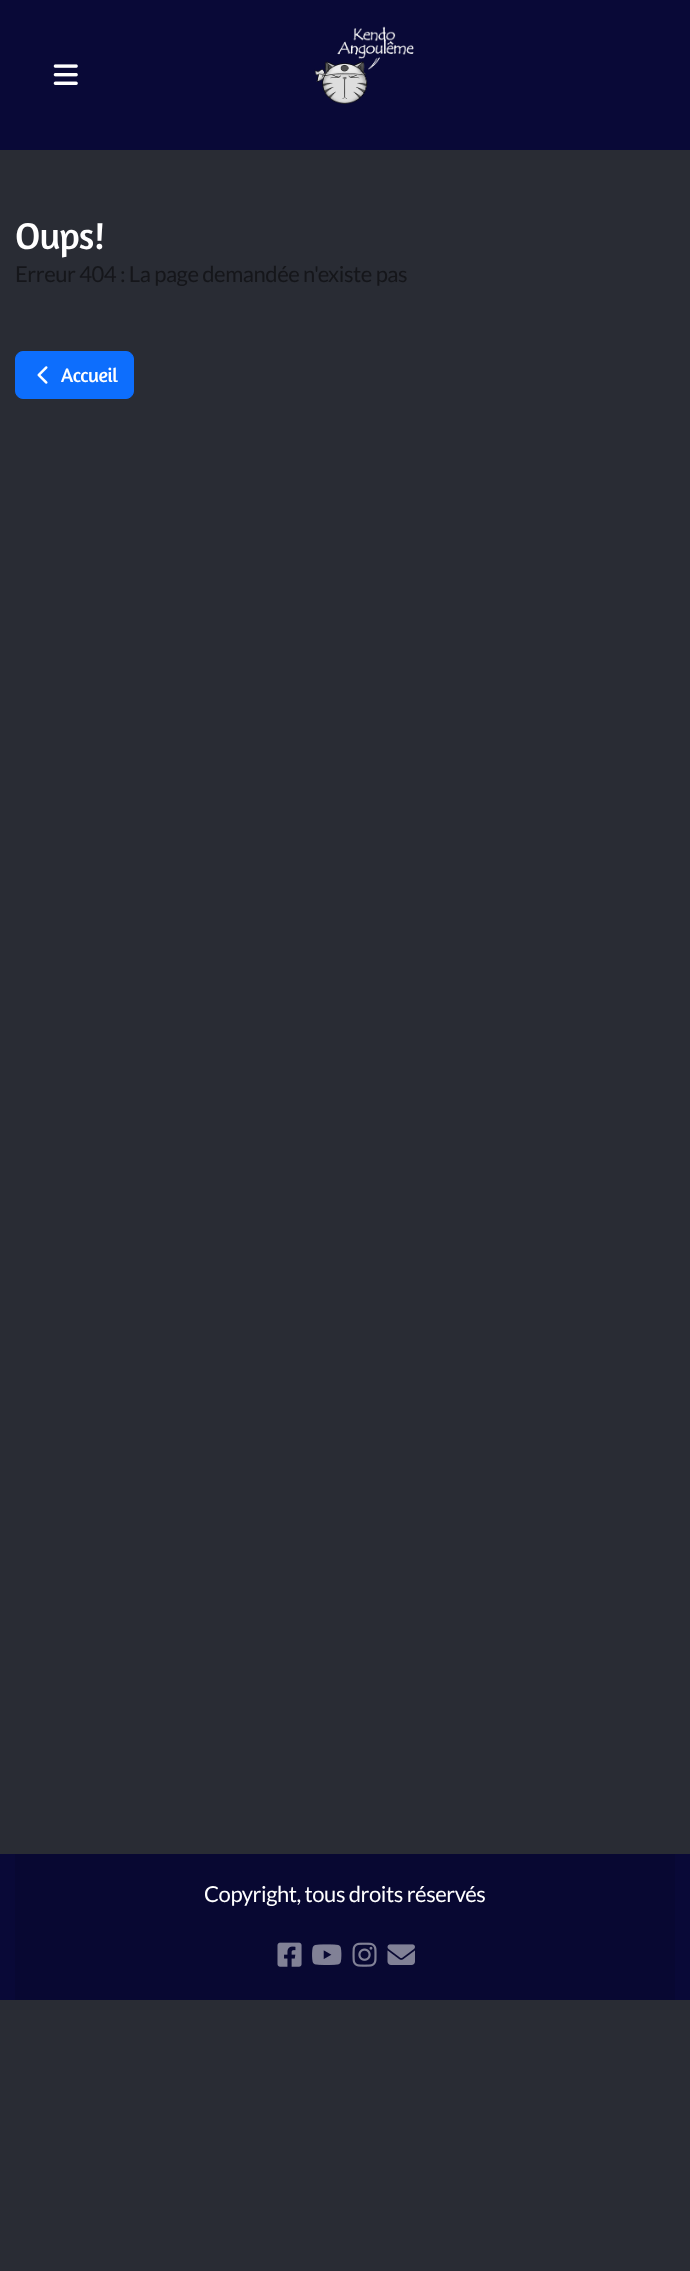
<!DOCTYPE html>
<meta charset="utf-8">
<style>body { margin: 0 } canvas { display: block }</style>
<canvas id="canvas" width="690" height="2271"></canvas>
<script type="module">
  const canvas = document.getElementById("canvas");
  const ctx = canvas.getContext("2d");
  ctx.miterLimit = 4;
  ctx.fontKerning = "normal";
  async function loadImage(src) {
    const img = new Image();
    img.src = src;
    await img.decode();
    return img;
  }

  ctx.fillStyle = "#292c34";
  ctx.fillRect(0, 0, 690, 2271);
  ctx.fillStyle = "#090937";
  ctx.fillRect(0, 0, 690, 150);
  ctx.drawImage(await loadImage("img1.png"), 53, 64, 25, 21);
  ctx.drawImage(await loadImage("img2.png"), 314, 26, 100, 78);
  ctx.letterSpacing = "-1px";
  ctx.font = "38px Amaranth";
  ctx.fillStyle = "#ffffff";
  ctx.fillText("Oups!", 15, 249);
  ctx.letterSpacing = "-0.45px";
  ctx.font = "22px Lato";
  ctx.fillStyle = "#15161a";
  ctx.fillText("Erreur 404 : La page demandée n'existe pas", 15, 282);
  ctx.fillStyle = "#0d6efd";
  ctx.beginPath();
  ctx.roundRect(15.5, 351.5, 118, 47, 7.5);
  ctx.fill();
  ctx.strokeStyle = "#0d6efd";
  ctx.stroke();
  ctx.drawImage(await loadImage("img3.png"), 37, 366, 11, 18);
  ctx.font = "20px Amaranth";
  ctx.fillStyle = "#ffffff";
  ctx.fillText("Accueil", 61, 382);
  ctx.fillStyle = "#090937";
  ctx.fillRect(0, 1854, 690, 146);
  ctx.fillStyle = "#080832";
  ctx.fillRect(15, 1854, 660, 146);
  ctx.font = "22px Lato";
  ctx.fillStyle = "#ffffff";
  ctx.fillText("Copyright, tous droits réservés", 204, 1902);
  ctx.drawImage(await loadImage("img4.png"), 277, 1942, 25, 25);
  ctx.drawImage(await loadImage("img5.png"), 312, 1944, 30, 21);
  ctx.drawImage(await loadImage("img6.png"), 352, 1942, 25, 25);
  ctx.drawImage(await loadImage("img7.png"), 387, 1944, 28, 21);
</script>
